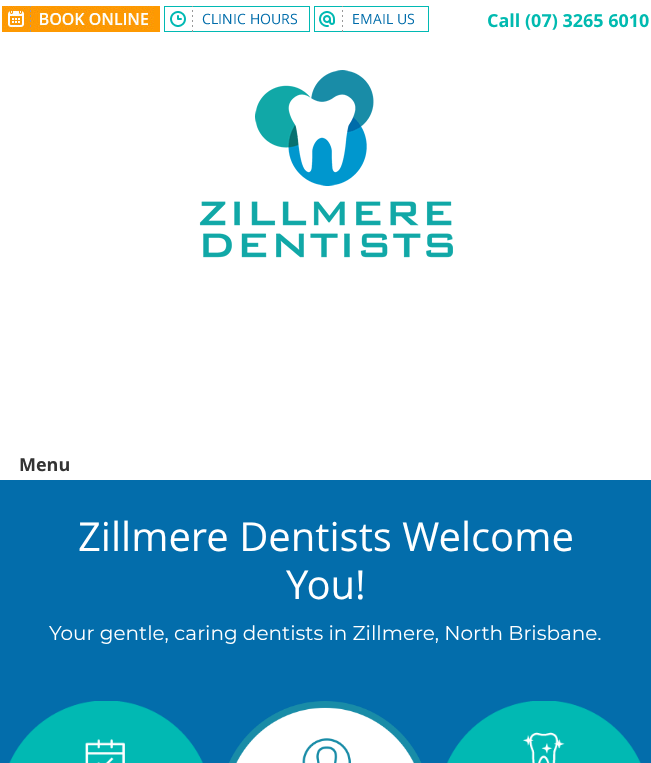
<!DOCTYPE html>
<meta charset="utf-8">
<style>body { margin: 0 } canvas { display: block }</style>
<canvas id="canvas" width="651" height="763"></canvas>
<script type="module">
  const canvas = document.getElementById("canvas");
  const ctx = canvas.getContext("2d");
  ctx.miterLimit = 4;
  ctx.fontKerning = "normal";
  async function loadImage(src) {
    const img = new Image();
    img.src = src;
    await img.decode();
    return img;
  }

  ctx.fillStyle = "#ffffff";
  ctx.fillRect(0, 0, 651, 763);
  ctx.drawImage(await loadImage("img1.png"), 2, 6, 158, 26);
  ctx.drawImage(await loadImage("img2.png"), 164, 6, 146, 26);
  ctx.drawImage(await loadImage("img3.png"), 314, 6, 115, 26);
  ctx.font = "bold 18px Open Sans";
  ctx.fillStyle = "#00bab0";
  ctx.fillText("Call (07) 3265 6010", 487, 27);
  ctx.drawImage(await loadImage("img4.png"), 199, 70, 254, 188);
  ctx.fillStyle = "#333333";
  ctx.fillText("Menu", 19, 471);
  ctx.fillStyle = "#036dab";
  ctx.fillRect(0, 480, 651, 283);
  ctx.font = "40px Open Sans";
  ctx.fillStyle = "#ffffff";
  ctx.fillText("Zillmere Dentists Welcome", 78, 551);
  ctx.fillText("You!", 286, 599);
  ctx.font = "20px Montserrat";
  ctx.fillText("Your gentle, caring dentists in Zillmere, North Brisbane.", 49, 640);
  ctx.drawImage(await loadImage("img5.png"), 9, 701, 194, 62);
  ctx.drawImage(await loadImage("img6.png"), 229, 701, 193, 62);
  ctx.drawImage(await loadImage("img7.png"), 447, 701, 194, 62);
</script>
